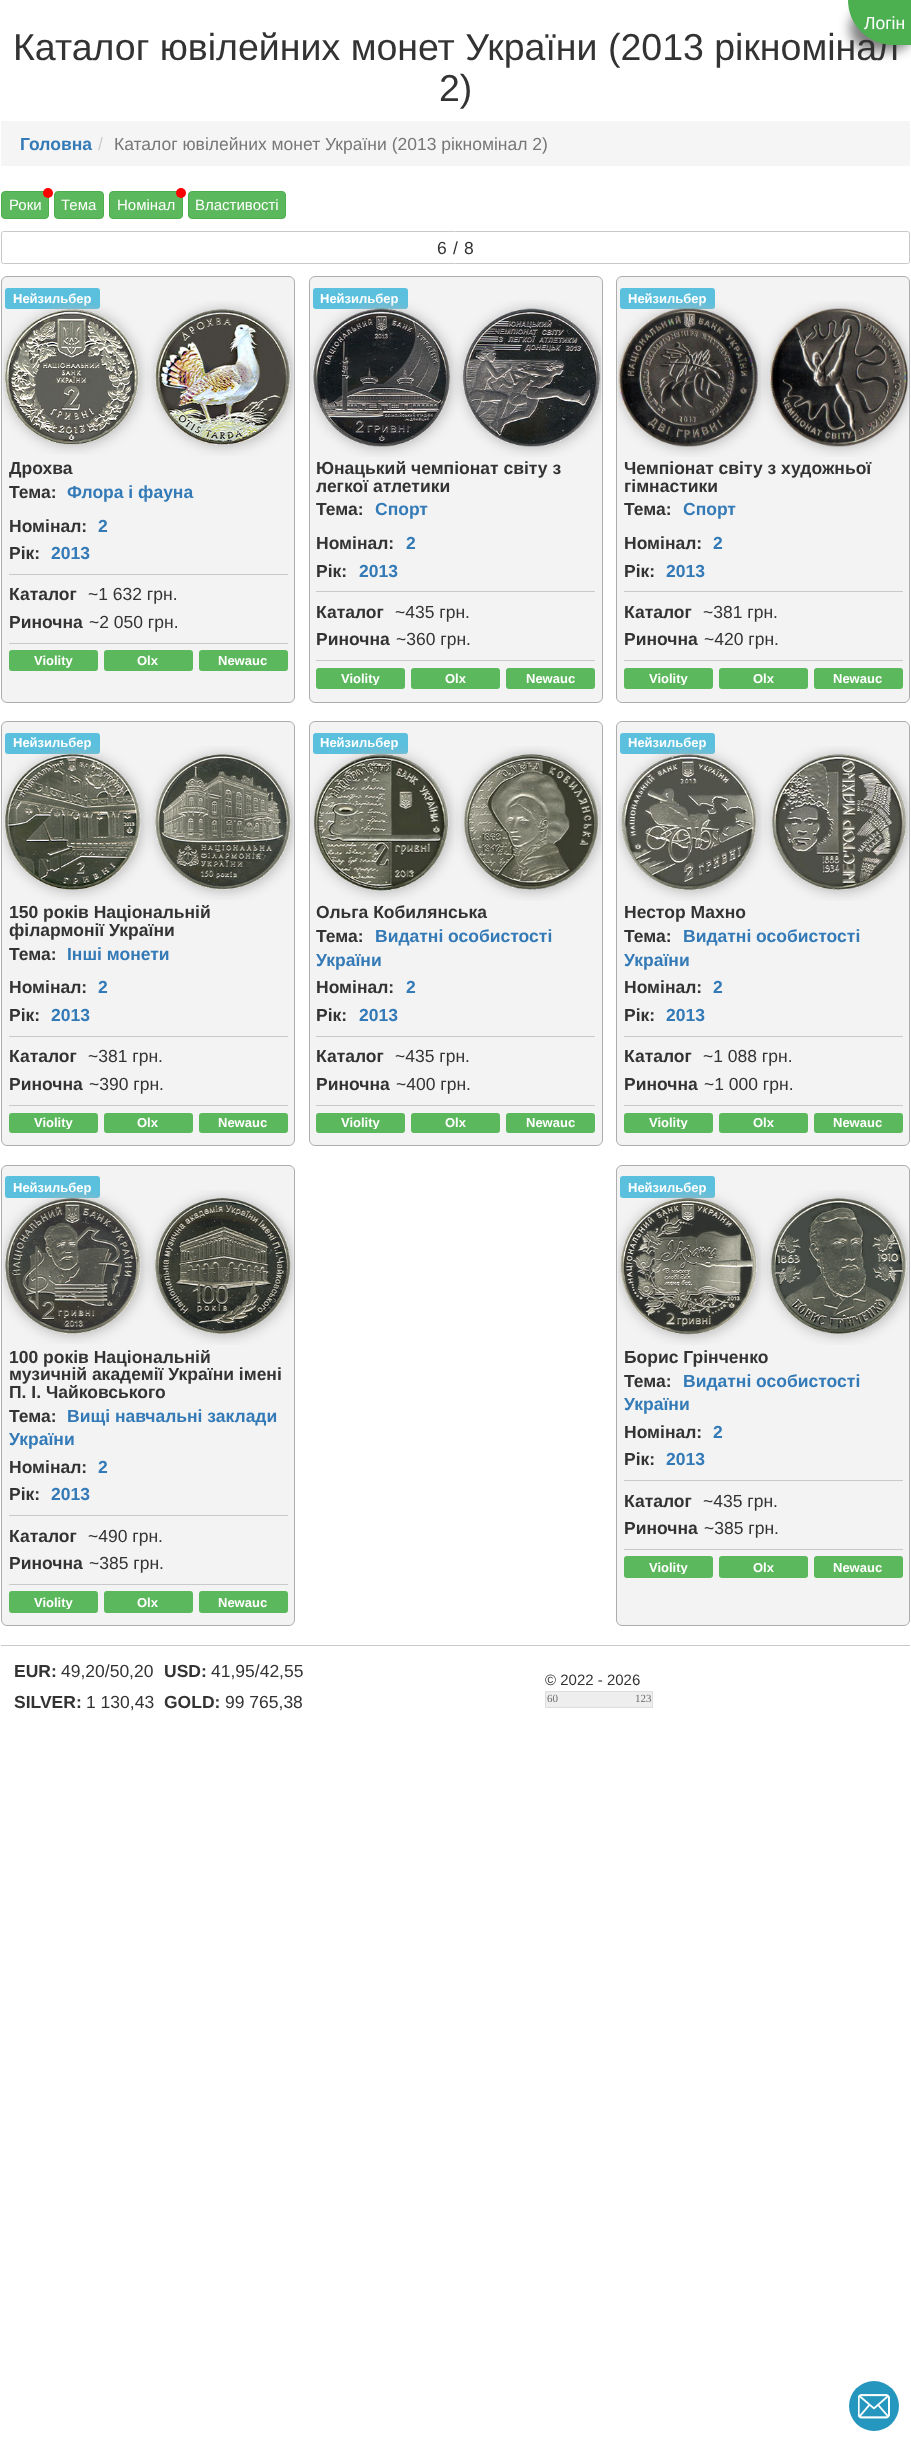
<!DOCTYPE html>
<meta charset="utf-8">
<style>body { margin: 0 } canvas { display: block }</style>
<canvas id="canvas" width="911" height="2443"></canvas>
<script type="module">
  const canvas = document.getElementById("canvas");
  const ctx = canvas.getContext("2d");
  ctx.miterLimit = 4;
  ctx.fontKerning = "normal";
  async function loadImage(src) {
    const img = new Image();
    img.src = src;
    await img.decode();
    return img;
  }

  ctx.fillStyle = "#ffffff";
  ctx.fillRect(0, 0, 911, 2443);
  ctx.fillStyle = "rgba(0, 0, 0, 0.5)";
  ctx.filter = "blur(6px)";
  ctx.beginPath();
  ctx.roundRect(850, 6, 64, 45, 45);
  ctx.fill();
  ctx.filter = "none";
  ctx.font = "37.5px Liberation Sans";
  ctx.fillStyle = "#333333";
  ctx.fillText("Каталог ювілейних монет України (2013 рікномінал", 13, 60);
  ctx.fillStyle = "#4caf50";
  ctx.beginPath();
  ctx.roundRect(848, 0, 63, 45, [0, 0, 0, 45]);
  ctx.fill();
  ctx.font = "17.5px Liberation Sans";
  ctx.fillStyle = "#ffffff";
  ctx.fillText("Логін", 864, 29);
  ctx.font = "37.5px Liberation Sans";
  ctx.fillStyle = "#333333";
  ctx.fillText("2)", 439, 101);
  ctx.fillStyle = "#f5f5f5";
  ctx.fillRect(1, 121, 909, 45);
  ctx.font = "bold 17.5px Liberation Sans";
  ctx.fillStyle = "#337ab7";
  ctx.fillText("Головна", 20, 150);
  ctx.font = "17.5px Liberation Sans";
  ctx.fillStyle = "#cccccc";
  ctx.fillText("/", 98, 150);
  ctx.fillStyle = "#777777";
  ctx.fillText("Каталог ювілейних монет України (2013 рікномінал 2)", 114, 150);
  ctx.fillStyle = "#5cb85c";
  ctx.beginPath();
  ctx.roundRect(1.5, 191.5, 47, 27, 3.5);
  ctx.fill();
  ctx.strokeStyle = "#4cae4c";
  ctx.stroke();
  ctx.fillStyle = "#ff0000";
  ctx.beginPath();
  ctx.arc(48, 193, 5, 0, Math.PI * 2);
  ctx.fill();
  ctx.font = "15px Liberation Sans";
  ctx.fillStyle = "#ffffff";
  ctx.fillText("Роки", 9, 210);
  ctx.fillStyle = "#5cb85c";
  ctx.beginPath();
  ctx.roundRect(54.5, 191.5, 49, 27, 3.5);
  ctx.fill();
  ctx.stroke();
  ctx.fillStyle = "#ffffff";
  ctx.fillText("Тема", 61, 210);
  ctx.fillStyle = "#5cb85c";
  ctx.beginPath();
  ctx.roundRect(109.5, 191.5, 73, 27, 3.5);
  ctx.fill();
  ctx.stroke();
  ctx.fillStyle = "#ff0000";
  ctx.beginPath();
  ctx.arc(181, 193, 5, 0, Math.PI * 2);
  ctx.fill();
  ctx.fillStyle = "#ffffff";
  ctx.fillText("Номінал", 117, 210);
  ctx.fillStyle = "#5cb85c";
  ctx.beginPath();
  ctx.roundRect(188.5, 191.5, 97, 27, 3.5);
  ctx.fill();
  ctx.stroke();
  ctx.fillStyle = "#ffffff";
  ctx.fillText("Властивості", 195, 210);
  ctx.beginPath();
  ctx.roundRect(1.5, 231.5, 908, 32, 2);
  ctx.strokeStyle = "#c9c9c9";
  ctx.stroke();
  ctx.font = "17.5px Liberation Sans";
  ctx.fillStyle = "#333333";
  ctx.fillText("6", 437, 254);
  ctx.fillText("/", 453, 254);
  ctx.fillText("8", 464, 254);
  ctx.fillStyle = "#f3f3f3";
  ctx.beginPath();
  ctx.roundRect(1.5, 276.5, 293, 426, 5.5);
  ctx.fill();
  ctx.strokeStyle = "#adadad";
  ctx.stroke();
  ctx.fillStyle = "#5bc0de";
  ctx.beginPath();
  ctx.roundRect(5, 288, 95, 21, 3);
  ctx.fill();
  ctx.font = "bold 13px Liberation Sans";
  ctx.fillStyle = "#ffffff";
  ctx.fillText("Нейзильбер", 13, 303);
  ctx.drawImage(await loadImage("img1.png"), 2, 300, 147, 155);
  ctx.drawImage(await loadImage("img2.png"), 147, 301, 147, 155);
  ctx.font = "bold 17.5px Liberation Sans";
  ctx.fillStyle = "#333333";
  ctx.fillText("Дрохва", 9, 474);
  ctx.fillText("Тема:", 9, 498);
  ctx.fillStyle = "#337ab7";
  ctx.fillText("Флора і фауна", 67, 498);
  ctx.fillStyle = "#333333";
  ctx.fillText("Номінал:", 9, 532);
  ctx.fillStyle = "#337ab7";
  ctx.fillText("2", 98, 532);
  ctx.fillStyle = "#333333";
  ctx.fillText("Рік:", 9, 559);
  ctx.fillStyle = "#337ab7";
  ctx.fillText("2013", 51, 559);
  ctx.fillStyle = "#c9c9c9";
  ctx.fillRect(9, 574, 279, 1);
  ctx.fillStyle = "#333333";
  ctx.fillText("Каталог", 9, 600);
  ctx.font = "17.5px Liberation Sans";
  ctx.fillText("~1 632 грн.", 88, 600);
  ctx.font = "bold 17.5px Liberation Sans";
  ctx.fillText("Риночна", 9, 628);
  ctx.font = "17.5px Liberation Sans";
  ctx.fillText("~2 050 грн.", 89, 628);
  ctx.fillStyle = "#c9c9c9";
  ctx.fillRect(9, 643, 279, 1);
  ctx.fillStyle = "#5cb85c";
  ctx.beginPath();
  ctx.roundRect(11, 652, 85, 17, 1);
  ctx.fill();
  ctx.strokeStyle = "#5cb85c";
  ctx.lineWidth = 4;
  ctx.stroke();
  ctx.font = "bold 13px Liberation Sans";
  ctx.fillStyle = "#ffffff";
  ctx.fillText("Violity", 34, 665);
  ctx.fillStyle = "#5cb85c";
  ctx.beginPath();
  ctx.roundRect(106, 652, 85, 17, 1);
  ctx.fill();
  ctx.stroke();
  ctx.fillStyle = "#ffffff";
  ctx.fillText("Olx", 137, 665);
  ctx.fillStyle = "#5cb85c";
  ctx.beginPath();
  ctx.roundRect(201, 652, 85, 17, 1);
  ctx.fill();
  ctx.stroke();
  ctx.fillStyle = "#ffffff";
  ctx.fillText("Newauc", 218, 665);
  ctx.fillStyle = "#f3f3f3";
  ctx.beginPath();
  ctx.roundRect(309.5, 276.5, 293, 426, 5.5);
  ctx.fill();
  ctx.strokeStyle = "#adadad";
  ctx.lineWidth = 1;
  ctx.stroke();
  ctx.fillStyle = "#5bc0de";
  ctx.beginPath();
  ctx.roundRect(313, 288, 95, 21, 3);
  ctx.fill();
  ctx.fillStyle = "#ffffff";
  ctx.fillText("Нейзильбер", 320, 303);
  ctx.drawImage(await loadImage("img3.png"), 310, 299, 151, 158);
  ctx.drawImage(await loadImage("img4.png"), 455, 300, 147, 157);
  ctx.font = "bold 17.5px Liberation Sans";
  ctx.fillStyle = "#333333";
  ctx.fillText("Юнацький чемпіонат світу з", 316, 474);
  ctx.fillText("легкої атлетики", 316, 492);
  ctx.fillText("Тема:", 316, 515);
  ctx.fillStyle = "#337ab7";
  ctx.fillText("Спорт", 375, 515);
  ctx.fillStyle = "#333333";
  ctx.fillText("Номінал:", 316, 549);
  ctx.fillStyle = "#337ab7";
  ctx.fillText("2", 406, 549);
  ctx.fillStyle = "#333333";
  ctx.fillText("Рік:", 316, 577);
  ctx.fillStyle = "#337ab7";
  ctx.fillText("2013", 359, 577);
  ctx.fillStyle = "#c9c9c9";
  ctx.fillRect(316, 591, 279, 1);
  ctx.fillStyle = "#333333";
  ctx.fillText("Каталог", 316, 618);
  ctx.font = "17.5px Liberation Sans";
  ctx.fillText("~435 грн.", 395, 618);
  ctx.font = "bold 17.5px Liberation Sans";
  ctx.fillText("Риночна", 316, 645);
  ctx.font = "17.5px Liberation Sans";
  ctx.fillText("~360 грн.", 396, 645);
  ctx.fillStyle = "#c9c9c9";
  ctx.fillRect(316, 660, 279, 1);
  ctx.fillStyle = "#5cb85c";
  ctx.beginPath();
  ctx.roundRect(318, 670, 85, 17, 1);
  ctx.fill();
  ctx.strokeStyle = "#5cb85c";
  ctx.lineWidth = 4;
  ctx.stroke();
  ctx.save();
  ctx.beginPath();
  ctx.rect(320, 671, 81, 14);
  ctx.clip();
  ctx.font = "bold 13px Liberation Sans";
  ctx.fillStyle = "#ffffff";
  ctx.fillText("Violity", 341, 683);
  ctx.restore();
  ctx.beginPath();
  ctx.roundRect(413, 670, 85, 17, 1);
  ctx.fill();
  ctx.stroke();
  ctx.font = "bold 13px Liberation Sans";
  ctx.fillStyle = "#ffffff";
  ctx.fillText("Olx", 445, 683);
  ctx.fillStyle = "#5cb85c";
  ctx.beginPath();
  ctx.roundRect(508, 670, 85, 17, 1);
  ctx.fill();
  ctx.stroke();
  ctx.fillStyle = "#ffffff";
  ctx.fillText("Newauc", 526, 683);
  ctx.fillStyle = "#f3f3f3";
  ctx.beginPath();
  ctx.roundRect(616.5, 276.5, 293, 426, 5.5);
  ctx.fill();
  ctx.strokeStyle = "#adadad";
  ctx.lineWidth = 1;
  ctx.stroke();
  ctx.fillStyle = "#5bc0de";
  ctx.beginPath();
  ctx.roundRect(620, 288, 95, 21, 3);
  ctx.fill();
  ctx.fillStyle = "#ffffff";
  ctx.fillText("Нейзильбер", 628, 303);
  ctx.drawImage(await loadImage("img5.png"), 617, 299, 151, 158);
  ctx.drawImage(await loadImage("img6.png"), 763, 301, 146, 156);
  ctx.font = "bold 17.5px Liberation Sans";
  ctx.fillStyle = "#333333";
  ctx.fillText("Чемпіонат світу з художньої", 624, 474);
  ctx.fillText("гімнастики", 624, 492);
  ctx.fillText("Тема:", 624, 515);
  ctx.fillStyle = "#337ab7";
  ctx.fillText("Спорт", 683, 515);
  ctx.fillStyle = "#333333";
  ctx.fillText("Номінал:", 624, 549);
  ctx.fillStyle = "#337ab7";
  ctx.fillText("2", 713, 549);
  ctx.fillStyle = "#333333";
  ctx.fillText("Рік:", 624, 577);
  ctx.fillStyle = "#337ab7";
  ctx.fillText("2013", 666, 577);
  ctx.fillStyle = "#c9c9c9";
  ctx.fillRect(624, 591, 279, 1);
  ctx.fillStyle = "#333333";
  ctx.fillText("Каталог", 624, 618);
  ctx.font = "17.5px Liberation Sans";
  ctx.fillText("~381 грн.", 703, 618);
  ctx.font = "bold 17.5px Liberation Sans";
  ctx.fillText("Риночна", 624, 645);
  ctx.font = "17.5px Liberation Sans";
  ctx.fillText("~420 грн.", 704, 645);
  ctx.fillStyle = "#c9c9c9";
  ctx.fillRect(624, 660, 279, 1);
  ctx.fillStyle = "#5cb85c";
  ctx.beginPath();
  ctx.roundRect(626, 670, 85, 17, 1);
  ctx.fill();
  ctx.strokeStyle = "#5cb85c";
  ctx.lineWidth = 4;
  ctx.stroke();
  ctx.save();
  ctx.beginPath();
  ctx.rect(628, 671, 81, 14);
  ctx.clip();
  ctx.font = "bold 13px Liberation Sans";
  ctx.fillStyle = "#ffffff";
  ctx.fillText("Violity", 649, 683);
  ctx.restore();
  ctx.beginPath();
  ctx.roundRect(721, 670, 85, 17, 1);
  ctx.fill();
  ctx.stroke();
  ctx.font = "bold 13px Liberation Sans";
  ctx.fillStyle = "#ffffff";
  ctx.fillText("Olx", 753, 683);
  ctx.fillStyle = "#5cb85c";
  ctx.beginPath();
  ctx.roundRect(816, 670, 85, 17, 1);
  ctx.fill();
  ctx.stroke();
  ctx.fillStyle = "#ffffff";
  ctx.fillText("Newauc", 833, 683);
  ctx.fillStyle = "#f3f3f3";
  ctx.beginPath();
  ctx.roundRect(1.5, 721.5, 293, 424, 5.5);
  ctx.fill();
  ctx.strokeStyle = "#adadad";
  ctx.lineWidth = 1;
  ctx.stroke();
  ctx.fillStyle = "#5bc0de";
  ctx.beginPath();
  ctx.roundRect(5, 733, 95, 21, 3);
  ctx.fill();
  ctx.fillStyle = "#ffffff";
  ctx.fillText("Нейзильбер", 13, 747);
  ctx.drawImage(await loadImage("img7.png"), 2, 745, 149, 156);
  ctx.drawImage(await loadImage("img8.png"), 147, 746, 147, 154);
  ctx.font = "bold 17.5px Liberation Sans";
  ctx.fillStyle = "#333333";
  ctx.fillText("150 років Національній", 9, 918);
  ctx.fillText("філармонії України", 9, 936);
  ctx.fillText("Тема:", 9, 960);
  ctx.fillStyle = "#337ab7";
  ctx.fillText("Інші монети", 67, 960);
  ctx.fillStyle = "#333333";
  ctx.fillText("Номінал:", 9, 993);
  ctx.fillStyle = "#337ab7";
  ctx.fillText("2", 98, 993);
  ctx.fillStyle = "#333333";
  ctx.fillText("Рік:", 9, 1021);
  ctx.fillStyle = "#337ab7";
  ctx.fillText("2013", 51, 1021);
  ctx.fillStyle = "#c9c9c9";
  ctx.fillRect(9, 1036, 279, 1);
  ctx.fillStyle = "#333333";
  ctx.fillText("Каталог", 9, 1062);
  ctx.font = "17.5px Liberation Sans";
  ctx.fillText("~381 грн.", 88, 1062);
  ctx.font = "bold 17.5px Liberation Sans";
  ctx.fillText("Риночна", 9, 1090);
  ctx.font = "17.5px Liberation Sans";
  ctx.fillText("~390 грн.", 89, 1090);
  ctx.fillStyle = "#c9c9c9";
  ctx.fillRect(9, 1105, 279, 1);
  ctx.fillStyle = "#5cb85c";
  ctx.beginPath();
  ctx.roundRect(11, 1115, 85, 16, 1);
  ctx.fill();
  ctx.strokeStyle = "#5cb85c";
  ctx.lineWidth = 4;
  ctx.stroke();
  ctx.save();
  ctx.beginPath();
  ctx.rect(13, 1116, 81, 13);
  ctx.clip();
  ctx.font = "bold 13px Liberation Sans";
  ctx.fillStyle = "#ffffff";
  ctx.fillText("Violity", 34, 1127);
  ctx.restore();
  ctx.beginPath();
  ctx.roundRect(106, 1115, 85, 16, 1);
  ctx.fill();
  ctx.stroke();
  ctx.font = "bold 13px Liberation Sans";
  ctx.fillStyle = "#ffffff";
  ctx.fillText("Olx", 137, 1127);
  ctx.fillStyle = "#5cb85c";
  ctx.beginPath();
  ctx.roundRect(201, 1115, 85, 16, 1);
  ctx.fill();
  ctx.stroke();
  ctx.fillStyle = "#ffffff";
  ctx.fillText("Newauc", 218, 1127);
  ctx.fillStyle = "#f3f3f3";
  ctx.beginPath();
  ctx.roundRect(309.5, 721.5, 293, 424, 5.5);
  ctx.fill();
  ctx.strokeStyle = "#adadad";
  ctx.lineWidth = 1;
  ctx.stroke();
  ctx.fillStyle = "#5bc0de";
  ctx.beginPath();
  ctx.roundRect(313, 733, 95, 21, 3);
  ctx.fill();
  ctx.fillStyle = "#ffffff";
  ctx.fillText("Нейзильбер", 320, 747);
  ctx.drawImage(await loadImage("img9.png"), 310, 745, 149, 156);
  ctx.drawImage(await loadImage("img10.png"), 456, 746, 146, 155);
  ctx.font = "bold 17.5px Liberation Sans";
  ctx.fillStyle = "#333333";
  ctx.fillText("Ольга Кобилянська", 316, 918);
  ctx.fillText("Тема:", 316, 942);
  ctx.fillStyle = "#337ab7";
  ctx.fillText("Видатні особистості", 375, 942);
  ctx.fillText("України", 316, 966);
  ctx.fillStyle = "#333333";
  ctx.fillText("Номінал:", 316, 993);
  ctx.fillStyle = "#337ab7";
  ctx.fillText("2", 406, 993);
  ctx.fillStyle = "#333333";
  ctx.fillText("Рік:", 316, 1021);
  ctx.fillStyle = "#337ab7";
  ctx.fillText("2013", 359, 1021);
  ctx.fillStyle = "#c9c9c9";
  ctx.fillRect(316, 1036, 279, 1);
  ctx.fillStyle = "#333333";
  ctx.fillText("Каталог", 316, 1062);
  ctx.font = "17.5px Liberation Sans";
  ctx.fillText("~435 грн.", 395, 1062);
  ctx.font = "bold 17.5px Liberation Sans";
  ctx.fillText("Риночна", 316, 1090);
  ctx.font = "17.5px Liberation Sans";
  ctx.fillText("~400 грн.", 396, 1090);
  ctx.fillStyle = "#c9c9c9";
  ctx.fillRect(316, 1105, 279, 1);
  ctx.fillStyle = "#5cb85c";
  ctx.beginPath();
  ctx.roundRect(318, 1115, 85, 16, 1);
  ctx.fill();
  ctx.strokeStyle = "#5cb85c";
  ctx.lineWidth = 4;
  ctx.stroke();
  ctx.save();
  ctx.beginPath();
  ctx.rect(320, 1116, 81, 13);
  ctx.clip();
  ctx.font = "bold 13px Liberation Sans";
  ctx.fillStyle = "#ffffff";
  ctx.fillText("Violity", 341, 1127);
  ctx.restore();
  ctx.beginPath();
  ctx.roundRect(413, 1115, 85, 16, 1);
  ctx.fill();
  ctx.stroke();
  ctx.font = "bold 13px Liberation Sans";
  ctx.fillStyle = "#ffffff";
  ctx.fillText("Olx", 445, 1127);
  ctx.fillStyle = "#5cb85c";
  ctx.beginPath();
  ctx.roundRect(508, 1115, 85, 16, 1);
  ctx.fill();
  ctx.stroke();
  ctx.fillStyle = "#ffffff";
  ctx.fillText("Newauc", 526, 1127);
  ctx.fillStyle = "#f3f3f3";
  ctx.beginPath();
  ctx.roundRect(616.5, 721.5, 293, 424, 5.5);
  ctx.fill();
  ctx.strokeStyle = "#adadad";
  ctx.lineWidth = 1;
  ctx.stroke();
  ctx.fillStyle = "#5bc0de";
  ctx.beginPath();
  ctx.roundRect(620, 733, 95, 21, 3);
  ctx.fill();
  ctx.fillStyle = "#ffffff";
  ctx.fillText("Нейзильбер", 628, 747);
  ctx.drawImage(await loadImage("img11.png"), 617, 746, 150, 155);
  ctx.drawImage(await loadImage("img12.png"), 764, 746, 145, 155);
  ctx.font = "bold 17.5px Liberation Sans";
  ctx.fillStyle = "#333333";
  ctx.fillText("Нестор Махно", 624, 918);
  ctx.fillText("Тема:", 624, 942);
  ctx.fillStyle = "#337ab7";
  ctx.fillText("Видатні особистості", 683, 942);
  ctx.fillText("України", 624, 966);
  ctx.fillStyle = "#333333";
  ctx.fillText("Номінал:", 624, 993);
  ctx.fillStyle = "#337ab7";
  ctx.fillText("2", 713, 993);
  ctx.fillStyle = "#333333";
  ctx.fillText("Рік:", 624, 1021);
  ctx.fillStyle = "#337ab7";
  ctx.fillText("2013", 666, 1021);
  ctx.fillStyle = "#c9c9c9";
  ctx.fillRect(624, 1036, 279, 1);
  ctx.fillStyle = "#333333";
  ctx.fillText("Каталог", 624, 1062);
  ctx.font = "17.5px Liberation Sans";
  ctx.fillText("~1 088 грн.", 703, 1062);
  ctx.font = "bold 17.5px Liberation Sans";
  ctx.fillText("Риночна", 624, 1090);
  ctx.font = "17.5px Liberation Sans";
  ctx.fillText("~1 000 грн.", 704, 1090);
  ctx.fillStyle = "#c9c9c9";
  ctx.fillRect(624, 1105, 279, 1);
  ctx.fillStyle = "#5cb85c";
  ctx.beginPath();
  ctx.roundRect(626, 1115, 85, 16, 1);
  ctx.fill();
  ctx.strokeStyle = "#5cb85c";
  ctx.lineWidth = 4;
  ctx.stroke();
  ctx.save();
  ctx.beginPath();
  ctx.rect(628, 1116, 81, 13);
  ctx.clip();
  ctx.font = "bold 13px Liberation Sans";
  ctx.fillStyle = "#ffffff";
  ctx.fillText("Violity", 649, 1127);
  ctx.restore();
  ctx.beginPath();
  ctx.roundRect(721, 1115, 85, 16, 1);
  ctx.fill();
  ctx.stroke();
  ctx.font = "bold 13px Liberation Sans";
  ctx.fillStyle = "#ffffff";
  ctx.fillText("Olx", 753, 1127);
  ctx.fillStyle = "#5cb85c";
  ctx.beginPath();
  ctx.roundRect(816, 1115, 85, 16, 1);
  ctx.fill();
  ctx.stroke();
  ctx.fillStyle = "#ffffff";
  ctx.fillText("Newauc", 833, 1127);
  ctx.fillStyle = "#f3f3f3";
  ctx.beginPath();
  ctx.roundRect(1.5, 1165.5, 293, 460, 5.5);
  ctx.fill();
  ctx.strokeStyle = "#adadad";
  ctx.lineWidth = 1;
  ctx.stroke();
  ctx.fillStyle = "#5bc0de";
  ctx.beginPath();
  ctx.roundRect(5, 1176, 95, 22, 3);
  ctx.fill();
  ctx.fillStyle = "#ffffff";
  ctx.fillText("Нейзильбер", 13, 1192);
  ctx.drawImage(await loadImage("img13.png"), 2, 1189, 149, 155);
  ctx.drawImage(await loadImage("img14.png"), 147, 1190, 147, 155);
  ctx.font = "bold 17.5px Liberation Sans";
  ctx.fillStyle = "#333333";
  ctx.fillText("100 років Національній", 9, 1363);
  ctx.fillText("музичній академії України імені", 9, 1380);
  ctx.fillText("П. І. Чайковського", 9, 1398);
  ctx.fillText("Тема:", 9, 1422);
  ctx.fillStyle = "#337ab7";
  ctx.fillText("Вищі навчальні заклади", 67, 1422);
  ctx.fillText("України", 9, 1445);
  ctx.fillStyle = "#333333";
  ctx.fillText("Номінал:", 9, 1473);
  ctx.fillStyle = "#337ab7";
  ctx.fillText("2", 98, 1473);
  ctx.fillStyle = "#333333";
  ctx.fillText("Рік:", 9, 1500);
  ctx.fillStyle = "#337ab7";
  ctx.fillText("2013", 51, 1500);
  ctx.fillStyle = "#c9c9c9";
  ctx.fillRect(9, 1515, 279, 1);
  ctx.fillStyle = "#333333";
  ctx.fillText("Каталог", 9, 1542);
  ctx.font = "17.5px Liberation Sans";
  ctx.fillText("~490 грн.", 88, 1542);
  ctx.font = "bold 17.5px Liberation Sans";
  ctx.fillText("Риночна", 9, 1569);
  ctx.font = "17.5px Liberation Sans";
  ctx.fillText("~385 грн.", 89, 1569);
  ctx.fillStyle = "#c9c9c9";
  ctx.fillRect(9, 1584, 279, 1);
  ctx.fillStyle = "#5cb85c";
  ctx.beginPath();
  ctx.roundRect(11, 1593, 85, 18, 1);
  ctx.fill();
  ctx.strokeStyle = "#5cb85c";
  ctx.lineWidth = 4;
  ctx.stroke();
  ctx.save();
  ctx.beginPath();
  ctx.rect(13, 1595, 81, 14);
  ctx.clip();
  ctx.font = "bold 13px Liberation Sans";
  ctx.fillStyle = "#ffffff";
  ctx.fillText("Violity", 34, 1607);
  ctx.restore();
  ctx.beginPath();
  ctx.roundRect(106, 1593, 85, 18, 1);
  ctx.fill();
  ctx.stroke();
  ctx.font = "bold 13px Liberation Sans";
  ctx.fillStyle = "#ffffff";
  ctx.fillText("Olx", 137, 1607);
  ctx.fillStyle = "#5cb85c";
  ctx.beginPath();
  ctx.roundRect(201, 1593, 85, 18, 1);
  ctx.fill();
  ctx.stroke();
  ctx.fillStyle = "#ffffff";
  ctx.fillText("Newauc", 218, 1607);
  ctx.fillStyle = "#f3f3f3";
  ctx.beginPath();
  ctx.roundRect(616.5, 1165.5, 293, 460, 5.5);
  ctx.fill();
  ctx.strokeStyle = "#adadad";
  ctx.lineWidth = 1;
  ctx.stroke();
  ctx.fillStyle = "#5bc0de";
  ctx.beginPath();
  ctx.roundRect(620, 1176, 95, 22, 3);
  ctx.fill();
  ctx.fillStyle = "#ffffff";
  ctx.fillText("Нейзильбер", 628, 1192);
  ctx.drawImage(await loadImage("img15.png"), 617, 1189, 151, 156);
  ctx.drawImage(await loadImage("img16.png"), 763, 1190, 146, 155);
  ctx.font = "bold 17.5px Liberation Sans";
  ctx.fillStyle = "#333333";
  ctx.fillText("Борис Грінченко", 624, 1363);
  ctx.fillText("Тема:", 624, 1387);
  ctx.fillStyle = "#337ab7";
  ctx.fillText("Видатні особистості", 683, 1387);
  ctx.fillText("України", 624, 1410);
  ctx.fillStyle = "#333333";
  ctx.fillText("Номінал:", 624, 1438);
  ctx.fillStyle = "#337ab7";
  ctx.fillText("2", 713, 1438);
  ctx.fillStyle = "#333333";
  ctx.fillText("Рік:", 624, 1465);
  ctx.fillStyle = "#337ab7";
  ctx.fillText("2013", 666, 1465);
  ctx.fillStyle = "#c9c9c9";
  ctx.fillRect(624, 1480, 279, 1);
  ctx.fillStyle = "#333333";
  ctx.fillText("Каталог", 624, 1507);
  ctx.font = "17.5px Liberation Sans";
  ctx.fillText("~435 грн.", 703, 1507);
  ctx.font = "bold 17.5px Liberation Sans";
  ctx.fillText("Риночна", 624, 1534);
  ctx.font = "17.5px Liberation Sans";
  ctx.fillText("~385 грн.", 704, 1534);
  ctx.fillStyle = "#c9c9c9";
  ctx.fillRect(624, 1549, 279, 1);
  ctx.fillStyle = "#5cb85c";
  ctx.beginPath();
  ctx.roundRect(626, 1558, 85, 18, 1);
  ctx.fill();
  ctx.strokeStyle = "#5cb85c";
  ctx.lineWidth = 4;
  ctx.stroke();
  ctx.save();
  ctx.beginPath();
  ctx.rect(628, 1560, 81, 14);
  ctx.clip();
  ctx.font = "bold 13px Liberation Sans";
  ctx.fillStyle = "#ffffff";
  ctx.fillText("Violity", 649, 1572);
  ctx.restore();
  ctx.beginPath();
  ctx.roundRect(721, 1558, 85, 18, 1);
  ctx.fill();
  ctx.stroke();
  ctx.font = "bold 13px Liberation Sans";
  ctx.fillStyle = "#ffffff";
  ctx.fillText("Olx", 753, 1572);
  ctx.fillStyle = "#5cb85c";
  ctx.beginPath();
  ctx.roundRect(816, 1558, 85, 18, 1);
  ctx.fill();
  ctx.stroke();
  ctx.fillStyle = "#ffffff";
  ctx.fillText("Newauc", 833, 1572);
  ctx.fillStyle = "#c9c9c9";
  ctx.fillRect(1, 1645, 909, 1);
  ctx.font = "bold 17.5px Liberation Sans";
  ctx.fillStyle = "#333333";
  ctx.fillText("EUR:", 14, 1677);
  ctx.font = "17.5px Liberation Sans";
  ctx.fillText("49,20/50,20", 61, 1677);
  ctx.font = "bold 17.5px Liberation Sans";
  ctx.fillText("USD:", 164, 1677);
  ctx.font = "17.5px Liberation Sans";
  ctx.fillText("41,95/42,55", 211, 1677);
  ctx.font = "bold 17.5px Liberation Sans";
  ctx.fillText("SILVER:", 14, 1708);
  ctx.font = "17.5px Liberation Sans";
  ctx.fillText("1 130,43", 86, 1708);
  ctx.font = "bold 17.5px Liberation Sans";
  ctx.fillText("GOLD:", 164, 1708);
  ctx.font = "17.5px Liberation Sans";
  ctx.fillText("99 765,38", 225, 1708);
  ctx.font = "15px Liberation Sans";
  ctx.fillText("© 2022 - 2026", 545, 1685);
  ctx.fillStyle = "#eeeeee";
  ctx.beginPath();
  ctx.rect(545.5, 1691.5, 107, 16);
  ctx.fill();
  ctx.strokeStyle = "#dddddd";
  ctx.lineWidth = 1;
  ctx.stroke();
  ctx.font = "11px Liberation Serif";
  ctx.fillStyle = "#6c6c6c";
  ctx.fillText("60", 547, 1702);
  ctx.fillText("123", 635, 1702);
  ctx.fillStyle = "#2596be";
  ctx.beginPath();
  ctx.arc(874, 2406, 25, 0, Math.PI * 2);
  ctx.fill();
  ctx.drawImage(await loadImage("img17.png"), 858, 2394, 32, 25);
</script>
